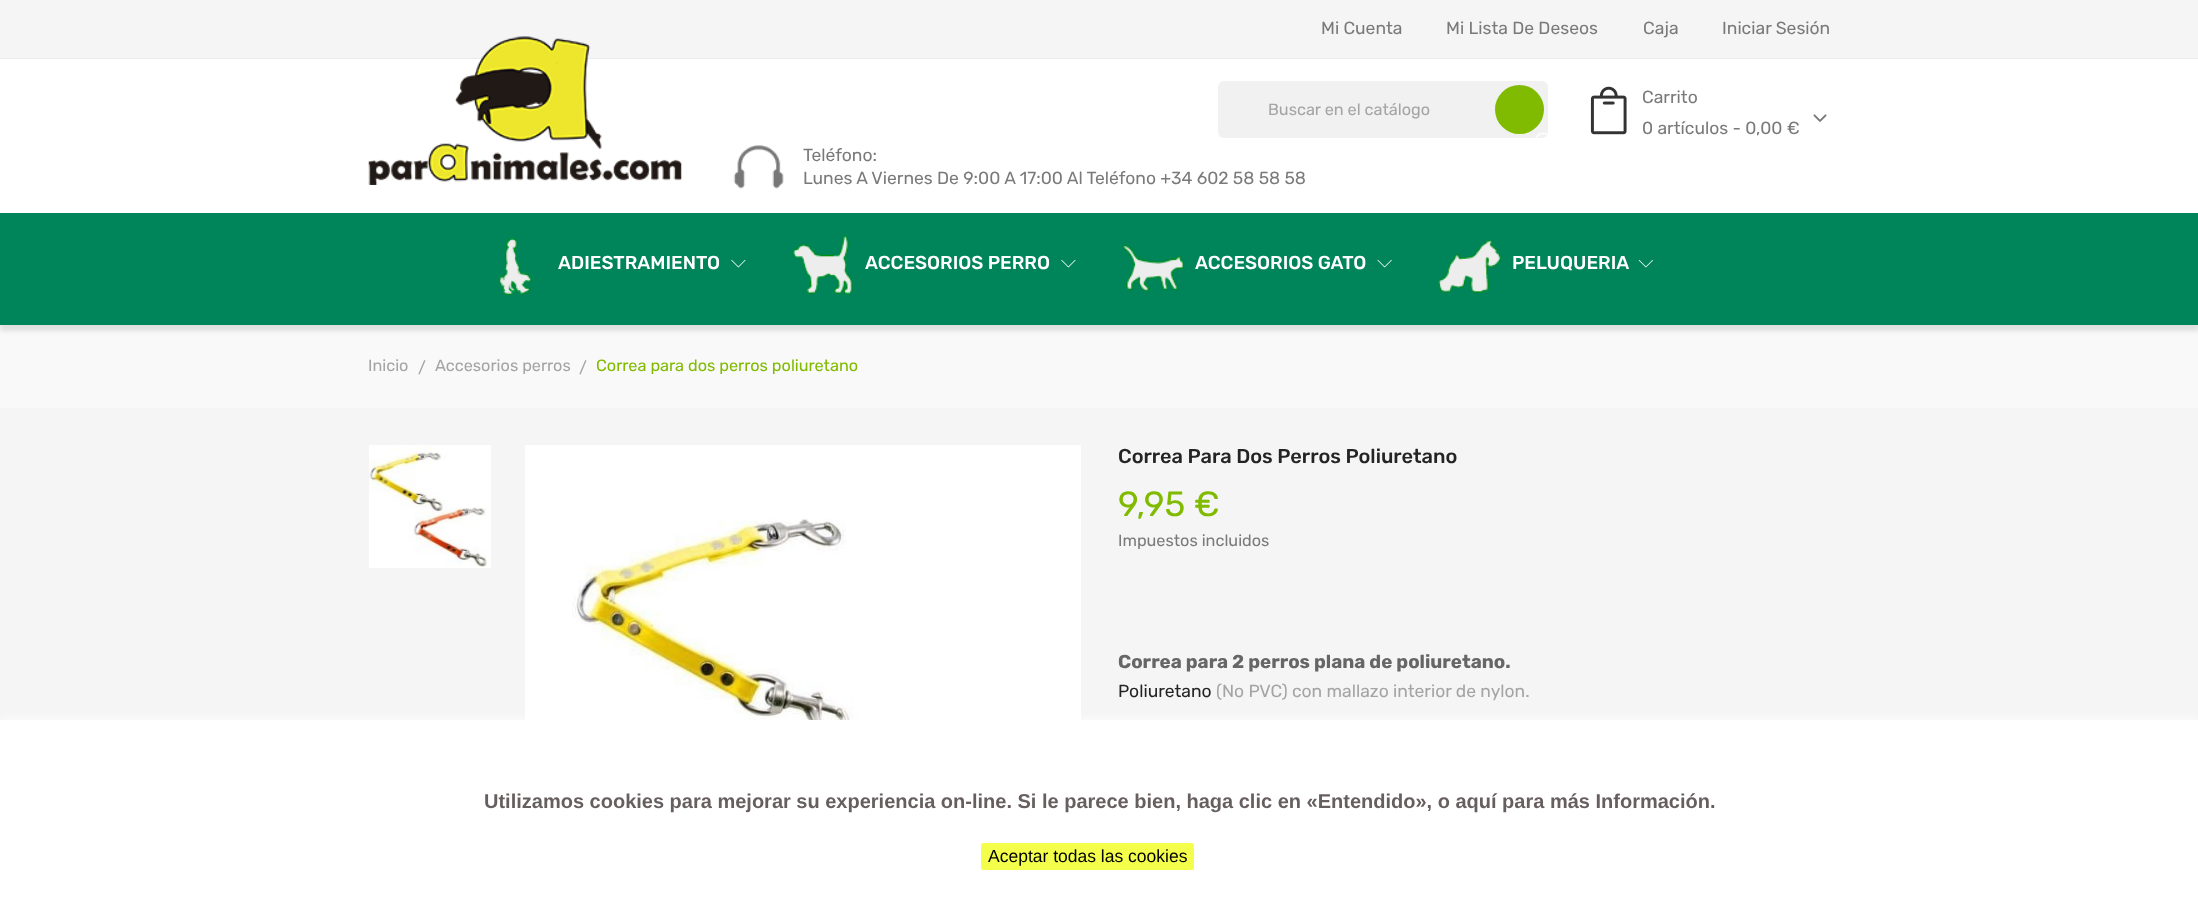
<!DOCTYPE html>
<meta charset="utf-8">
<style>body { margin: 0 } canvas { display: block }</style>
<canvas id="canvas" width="2198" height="914"></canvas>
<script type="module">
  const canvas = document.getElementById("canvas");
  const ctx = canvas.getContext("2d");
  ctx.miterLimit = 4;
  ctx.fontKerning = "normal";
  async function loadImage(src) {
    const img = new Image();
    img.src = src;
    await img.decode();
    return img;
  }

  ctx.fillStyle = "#f5f5f5";
  ctx.fillRect(0, 0, 2198, 914);
  ctx.fillStyle = "#ffffff";
  ctx.fillRect(0, 59, 2198, 154);
  ctx.fillStyle = "#ebebeb";
  ctx.fillRect(0, 58, 2198, 1);
  ctx.font = "17.5px Rubik";
  ctx.fillStyle = "#7a7a7a";
  ctx.fillText("Mi Cuenta", 1321, 34);
  ctx.fillText("Mi Lista De Deseos", 1446, 34);
  ctx.fillText("Caja", 1643, 34);
  ctx.fillText("Iniciar Sesión", 1722, 34);
  ctx.drawImage(await loadImage("img1.png"), 368, 36, 314, 149);
  ctx.fillStyle = "#f1f1f1";
  ctx.beginPath();
  ctx.roundRect(1218, 81, 330, 57, 6);
  ctx.fill();
  ctx.font = "16.25px Rubik";
  ctx.fillStyle = "#a4a4a4";
  ctx.fillText("Buscar en el catálogo", 1268, 115);
  ctx.fillStyle = "#80bb01";
  ctx.beginPath();
  ctx.arc(1519.5, 109.5, 24.5, 0, Math.PI * 2);
  ctx.fill();
  ctx.drawImage(await loadImage("img2.png"), 1535, 132, 13, 6);
  ctx.drawImage(await loadImage("img3.png"), 1590, 86, 37, 49);
  ctx.font = "17.5px Rubik";
  ctx.fillStyle = "#7a7a7a";
  ctx.fillText("Carrito", 1642, 103);
  ctx.drawImage(await loadImage("img4.png"), 1813, 114, 14, 8);
  ctx.fillText("0 artículos - 0,00 €", 1642, 134);
  ctx.drawImage(await loadImage("img5.png"), 733, 145, 51, 44);
  ctx.fillText("Teléfono:", 803, 161);
  ctx.fillText("Lunes A Viernes De 9:00 A 17:00 Al Teléfono +34 602 58 58 58", 803, 184);
  ctx.fillStyle = "#f9f9f9";
  ctx.fillRect(0, 325, 2198, 83);
  ctx.fillStyle = "rgba(0, 0, 0, 0.1)";
  ctx.filter = "blur(2.5px)";
  ctx.beginPath();
  ctx.rect(0, 219, 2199, 112);
  ctx.fill();
  ctx.filter = "none";
  ctx.fillStyle = "#008459";
  ctx.fillRect(0, 213, 2198, 112);
  ctx.drawImage(await loadImage("img6.png"), 498, 237, 35, 58);
  ctx.font = "500 18.75px Rubik";
  ctx.fillStyle = "#ffffff";
  ctx.fillText("ADIESTRAMIENTO", 558, 269);
  ctx.drawImage(await loadImage("img7.png"), 731, 259, 15, 9);
  ctx.drawImage(await loadImage("img8.png"), 792, 235, 61, 60);
  ctx.fillText("ACCESORIOS PERRO", 865, 269);
  ctx.drawImage(await loadImage("img7.png"), 1061, 259, 15, 9);
  ctx.drawImage(await loadImage("img9.png"), 1122, 245, 62, 47);
  ctx.fillText("ACCESORIOS GATO", 1195, 269);
  ctx.drawImage(await loadImage("img10.png"), 1377, 259, 15, 9);
  ctx.drawImage(await loadImage("img11.png"), 1438, 239, 64, 54);
  ctx.fillText("PELUQUERIA", 1512, 269);
  ctx.drawImage(await loadImage("img12.png"), 1638, 259, 15, 9);
  ctx.font = "16.25px Rubik";
  ctx.fillStyle = "#a4a4a4";
  ctx.fillText("Inicio", 368, 371);
  ctx.fillText("/", 418, 373);
  ctx.fillText("Accesorios perros", 435, 371);
  ctx.fillText("/", 579, 373);
  ctx.fillStyle = "#80bb01";
  ctx.fillText("Correa para dos perros poliuretano", 596, 371);
  ctx.fillStyle = "#ffffff";
  ctx.fillRect(369, 445, 122, 123);
  ctx.drawImage(await loadImage("img13.png"), 369, 445, 118, 122);
  ctx.fillRect(525, 445, 556, 275);
  ctx.drawImage(await loadImage("img14.png"), 572, 519, 439, 201);
  ctx.font = "500 20px Rubik";
  ctx.fillStyle = "#242424";
  ctx.fillText("Correa Para Dos Perros Poliuretano", 1118, 463);
  ctx.font = "35px Rubik";
  ctx.fillStyle = "#80bb01";
  ctx.fillText("9,95 €", 1118, 516);
  ctx.font = "16.25px Rubik";
  ctx.fillStyle = "#7a7a7a";
  ctx.fillText("Impuestos incluidos", 1118, 546);
  ctx.font = "bold 18.75px Rubik";
  ctx.fillStyle = "#666666";
  ctx.fillText("Correa para 2 perros plana de poliuretano.", 1118, 668);
  ctx.font = "17.5px Rubik";
  ctx.fillStyle = "#242424";
  ctx.fillText("Poliuretano", 1118, 697);
  ctx.fillStyle = "#a4a4a4";
  ctx.fillText("(No PVC) con mallazo interior de nylon.", 1216, 697);
  ctx.fillStyle = "#ffffff";
  ctx.filter = "blur(6px)";
  ctx.beginPath();
  ctx.rect(0, 720, 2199, 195);
  ctx.fill();
  ctx.filter = "none";
  ctx.fillRect(0, 720, 2198, 194);
  ctx.font = "bold 20px Liberation Sans";
  ctx.fillStyle = "#675f5f";
  ctx.fillText("Utilizamos cookies para mejorar su experiencia on-line. Si le parece bien, haga clic en «Entendido», o aquí para más Información.", 484, 808);
  ctx.fillStyle = "#f3ff4a";
  ctx.beginPath();
  ctx.roundRect(981, 843, 213, 27, 2.5);
  ctx.fill();
  ctx.font = "17.5px Liberation Sans";
  ctx.fillStyle = "#000000";
  ctx.fillText("Aceptar todas las cookies", 988, 862);
</script>
